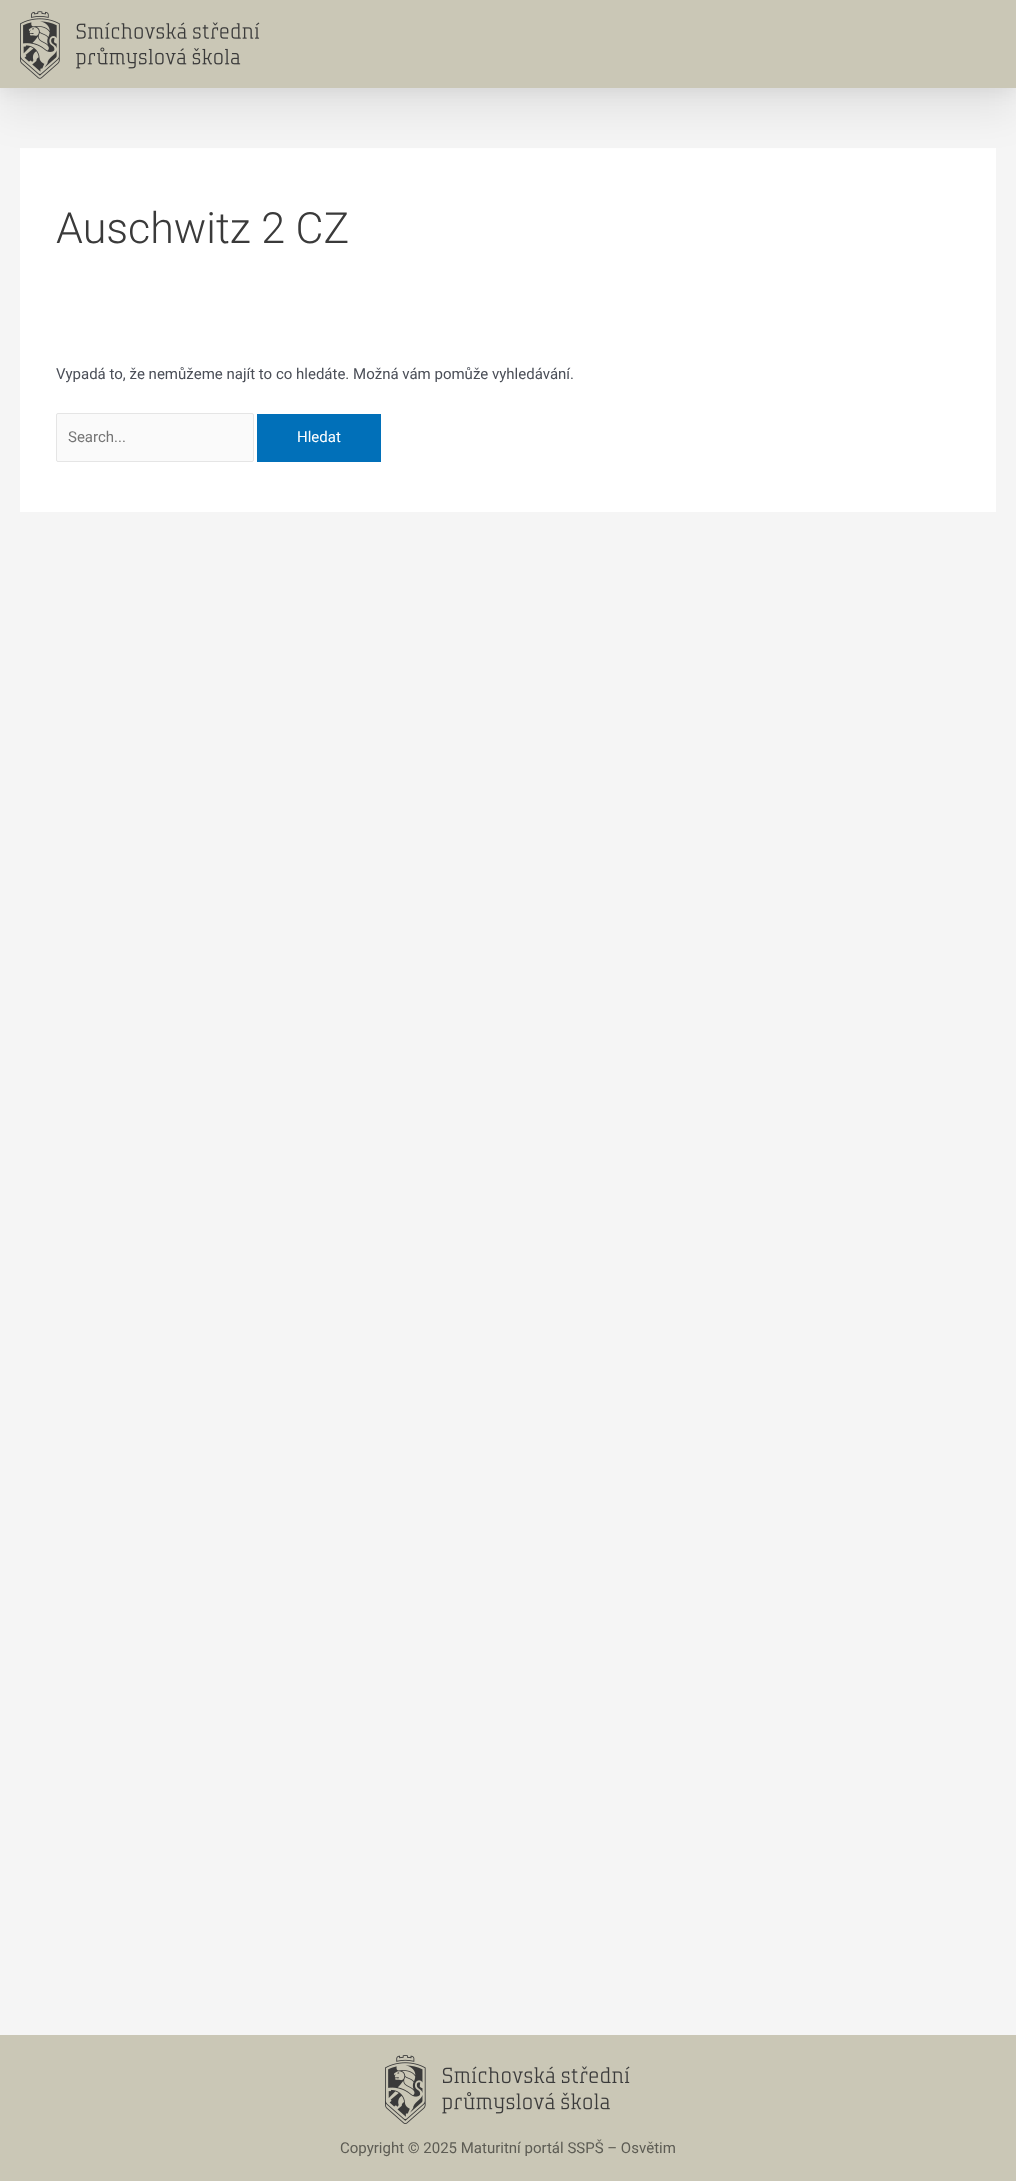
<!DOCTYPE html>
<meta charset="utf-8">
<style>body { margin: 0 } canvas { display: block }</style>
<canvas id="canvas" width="1016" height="2181"></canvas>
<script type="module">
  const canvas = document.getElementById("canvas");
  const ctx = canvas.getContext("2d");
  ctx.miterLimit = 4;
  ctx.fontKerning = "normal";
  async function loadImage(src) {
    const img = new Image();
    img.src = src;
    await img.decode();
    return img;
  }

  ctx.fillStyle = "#f5f5f5";
  ctx.fillRect(0, 0, 1016, 2181);
  ctx.fillStyle = "#ffffff";
  ctx.fillRect(20, 148, 976, 364);
  ctx.fillStyle = "rgba(0, 0, 0, 0.07)";
  ctx.filter = "blur(20px)";
  ctx.beginPath();
  ctx.rect(0, 25, 1016, 88);
  ctx.fill();
  ctx.filter = "none";
  ctx.fillStyle = "rgba(0, 0, 0, 0.05)";
  ctx.filter = "blur(7.5px)";
  ctx.beginPath();
  ctx.rect(0, 5, 1016, 88);
  ctx.fill();
  ctx.filter = "none";
  ctx.fillStyle = "#cac7b6";
  ctx.fillRect(0, 0, 1016, 88);
  ctx.drawImage(await loadImage("img1.png"), 20, 11, 240, 68);
  ctx.font = "300 43px Roboto";
  ctx.fillStyle = "#3a3a3a";
  ctx.fillText("Auschwitz 2 CZ", 56, 243);
  ctx.font = "15px Roboto";
  ctx.fillStyle = "#4b4f58";
  ctx.fillText("Vypadá to, že nemůžeme najít to co hledáte. Možná vám pomůže vyhledávání.", 56, 379);
  ctx.fillStyle = "#fafafa";
  ctx.beginPath();
  ctx.roundRect(56.5, 413.5, 197, 48, 1.5);
  ctx.fill();
  ctx.strokeStyle = "#e5e5e5";
  ctx.stroke();
  ctx.fillStyle = "#757575";
  ctx.fillText("Search...", 68, 442);
  ctx.fillStyle = "#0170b9";
  ctx.fillRect(257, 414, 124, 48);
  ctx.fillStyle = "#ffffff";
  ctx.fillText("Hledat", 297, 442);
  ctx.fillStyle = "#cac7b6";
  ctx.fillRect(0, 2035, 1016, 146);
  ctx.drawImage(await loadImage("img2.png"), 385, 2055, 245, 69);
  ctx.fillStyle = "#5d5c54";
  ctx.fillText("Copyright © 2025 Maturitní portál SSPŠ – Osvětim", 340, 2153);
</script>
